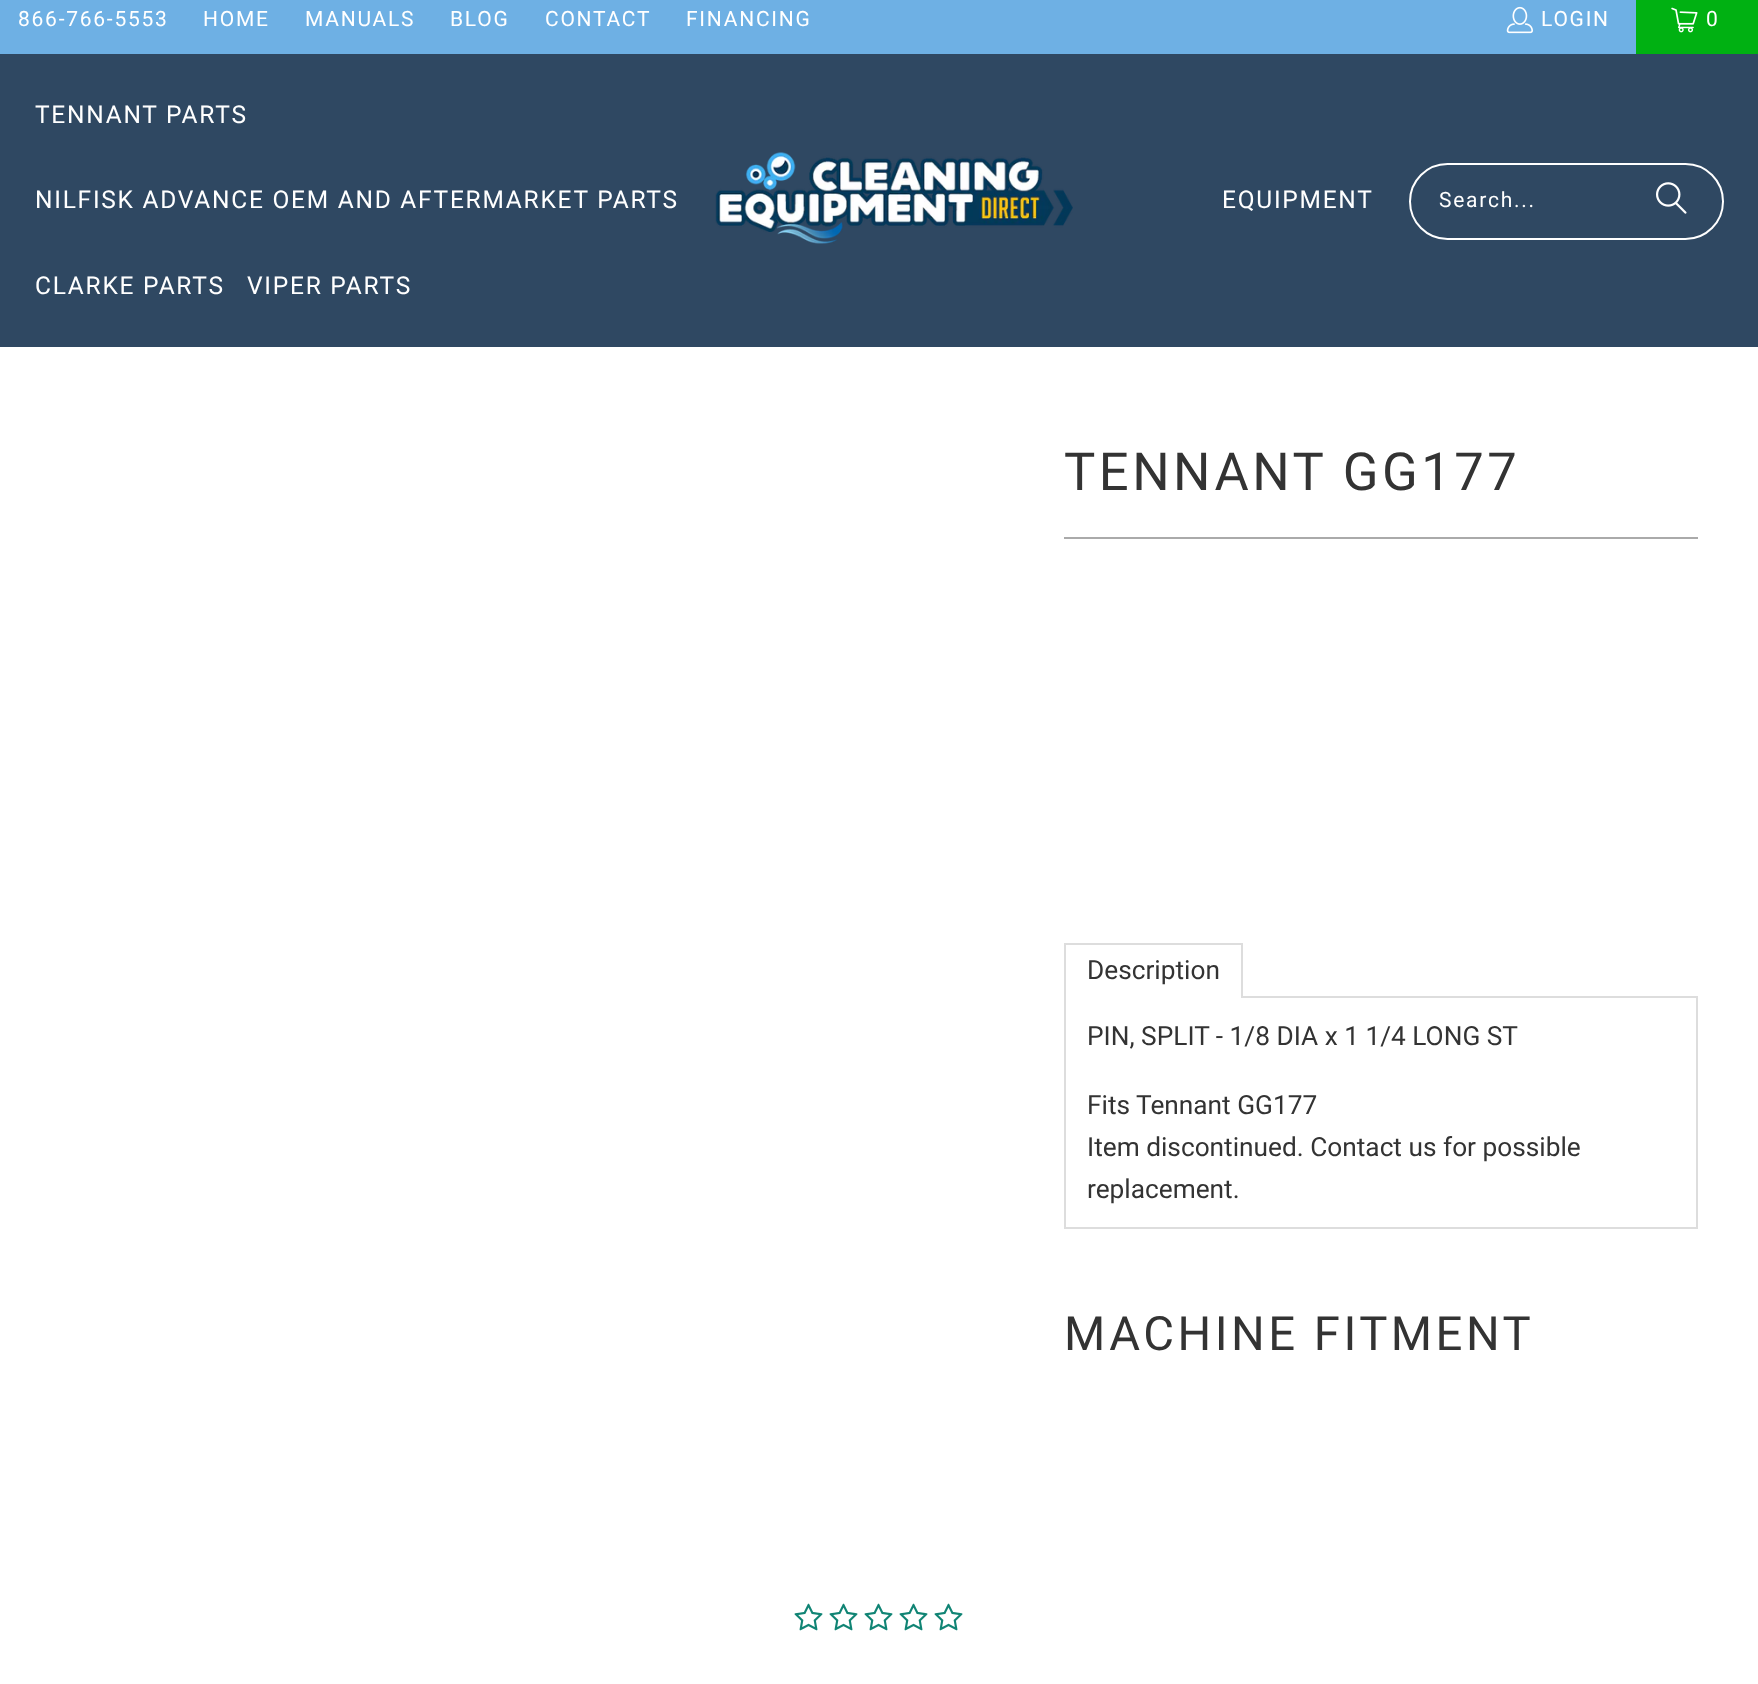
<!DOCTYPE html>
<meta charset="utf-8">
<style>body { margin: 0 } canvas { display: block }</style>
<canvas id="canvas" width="1758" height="1684"></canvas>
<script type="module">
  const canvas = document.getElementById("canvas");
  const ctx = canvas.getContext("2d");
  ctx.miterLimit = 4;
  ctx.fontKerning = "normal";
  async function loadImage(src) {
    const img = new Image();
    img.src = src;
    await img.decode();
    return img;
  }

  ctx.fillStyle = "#ffffff";
  ctx.fillRect(0, 0, 1758, 1684);
  ctx.fillStyle = "#6eb0e4";
  ctx.fillRect(0, 0, 1636, 54);
  ctx.letterSpacing = "1.75px";
  ctx.font = "21px Roboto";
  ctx.fillStyle = "#ffffff";
  ctx.fillText("866-766-5553", 18, 26);
  ctx.fillText("HOME", 203, 26);
  ctx.fillText("MANUALS", 305, 26);
  ctx.fillText("BLOG", 450, 26);
  ctx.fillText("CONTACT", 545, 26);
  ctx.fillText("FINANCING", 686, 26);
  ctx.drawImage(await loadImage("img1.png"), 1506, 6, 27, 28);
  ctx.fillText("LOGIN", 1541, 26);
  ctx.fillStyle = "#00b112";
  ctx.fillRect(1636, 0, 122, 54);
  ctx.drawImage(await loadImage("img2.png"), 1671, 7, 27, 26);
  ctx.fillStyle = "#ffffff";
  ctx.fillText("0", 1706, 26);
  ctx.fillStyle = "#2f4862";
  ctx.fillRect(0, 54, 1758, 293);
  ctx.font = "24.5px Roboto";
  ctx.fillStyle = "#ffffff";
  ctx.fillText("TENNANT PARTS", 35, 123);
  ctx.fillText("NILFISK ADVANCE OEM AND AFTERMARKET PARTS", 35, 208);
  ctx.fillText("CLARKE PARTS", 35, 294);
  ctx.fillText("VIPER PARTS", 247, 294);
  ctx.drawImage(await loadImage("img3.png"), 715, 152, 358, 92);
  ctx.fillText("EQUIPMENT", 1222, 208);
  ctx.beginPath();
  ctx.roundRect(1410, 164, 313, 75, 37.5);
  ctx.strokeStyle = "#ffffff";
  ctx.lineWidth = 2;
  ctx.stroke();
  ctx.font = "21px Roboto";
  ctx.fillText("Search...", 1439, 207);
  ctx.drawImage(await loadImage("img4.png"), 1656, 182, 31, 32);
  ctx.letterSpacing = "3.5px";
  ctx.font = "52.5px Roboto";
  ctx.fillStyle = "#333333";
  ctx.fillText("TENNANT GG177", 1064, 490);
  ctx.fillStyle = "#aaaaaa";
  ctx.fillRect(1064, 537, 634, 2);
  ctx.strokeStyle = "#dddddd";
  ctx.strokeRect(1065, 997, 632, 231);
  ctx.fillStyle = "#ffffff";
  ctx.fillRect(1066, 996, 175, 2);
  ctx.fillStyle = "#dddddd";
  ctx.fillRect(1064, 943, 179, 2);
  ctx.fillRect(1241, 943, 2, 55);
  ctx.fillRect(1064, 943, 2, 55);
  ctx.letterSpacing = "0px";
  ctx.font = "26.25px Roboto";
  ctx.fillStyle = "#333333";
  ctx.fillText("Description", 1087, 979);
  ctx.fillText("PIN, SPLIT - 1/8 DIA x 1 1/4 LONG ST", 1087, 1045);
  ctx.fillText("Fits Tennant GG177", 1087, 1114);
  ctx.fillText("Item discontinued. Contact us for possible", 1087, 1156);
  ctx.fillText("replacement.", 1087, 1198);
  ctx.letterSpacing = "3.5px";
  ctx.font = "47.25px Roboto";
  ctx.fillText("MACHINE FITMENT", 1064, 1350);
  ctx.drawImage(await loadImage("img5.png"), 794, 1603, 29, 28);
  ctx.drawImage(await loadImage("img5.png"), 829, 1603, 29, 28);
  ctx.drawImage(await loadImage("img5.png"), 864, 1603, 29, 28);
  ctx.drawImage(await loadImage("img5.png"), 899, 1603, 29, 28);
  ctx.drawImage(await loadImage("img5.png"), 934, 1603, 29, 28);
</script>
